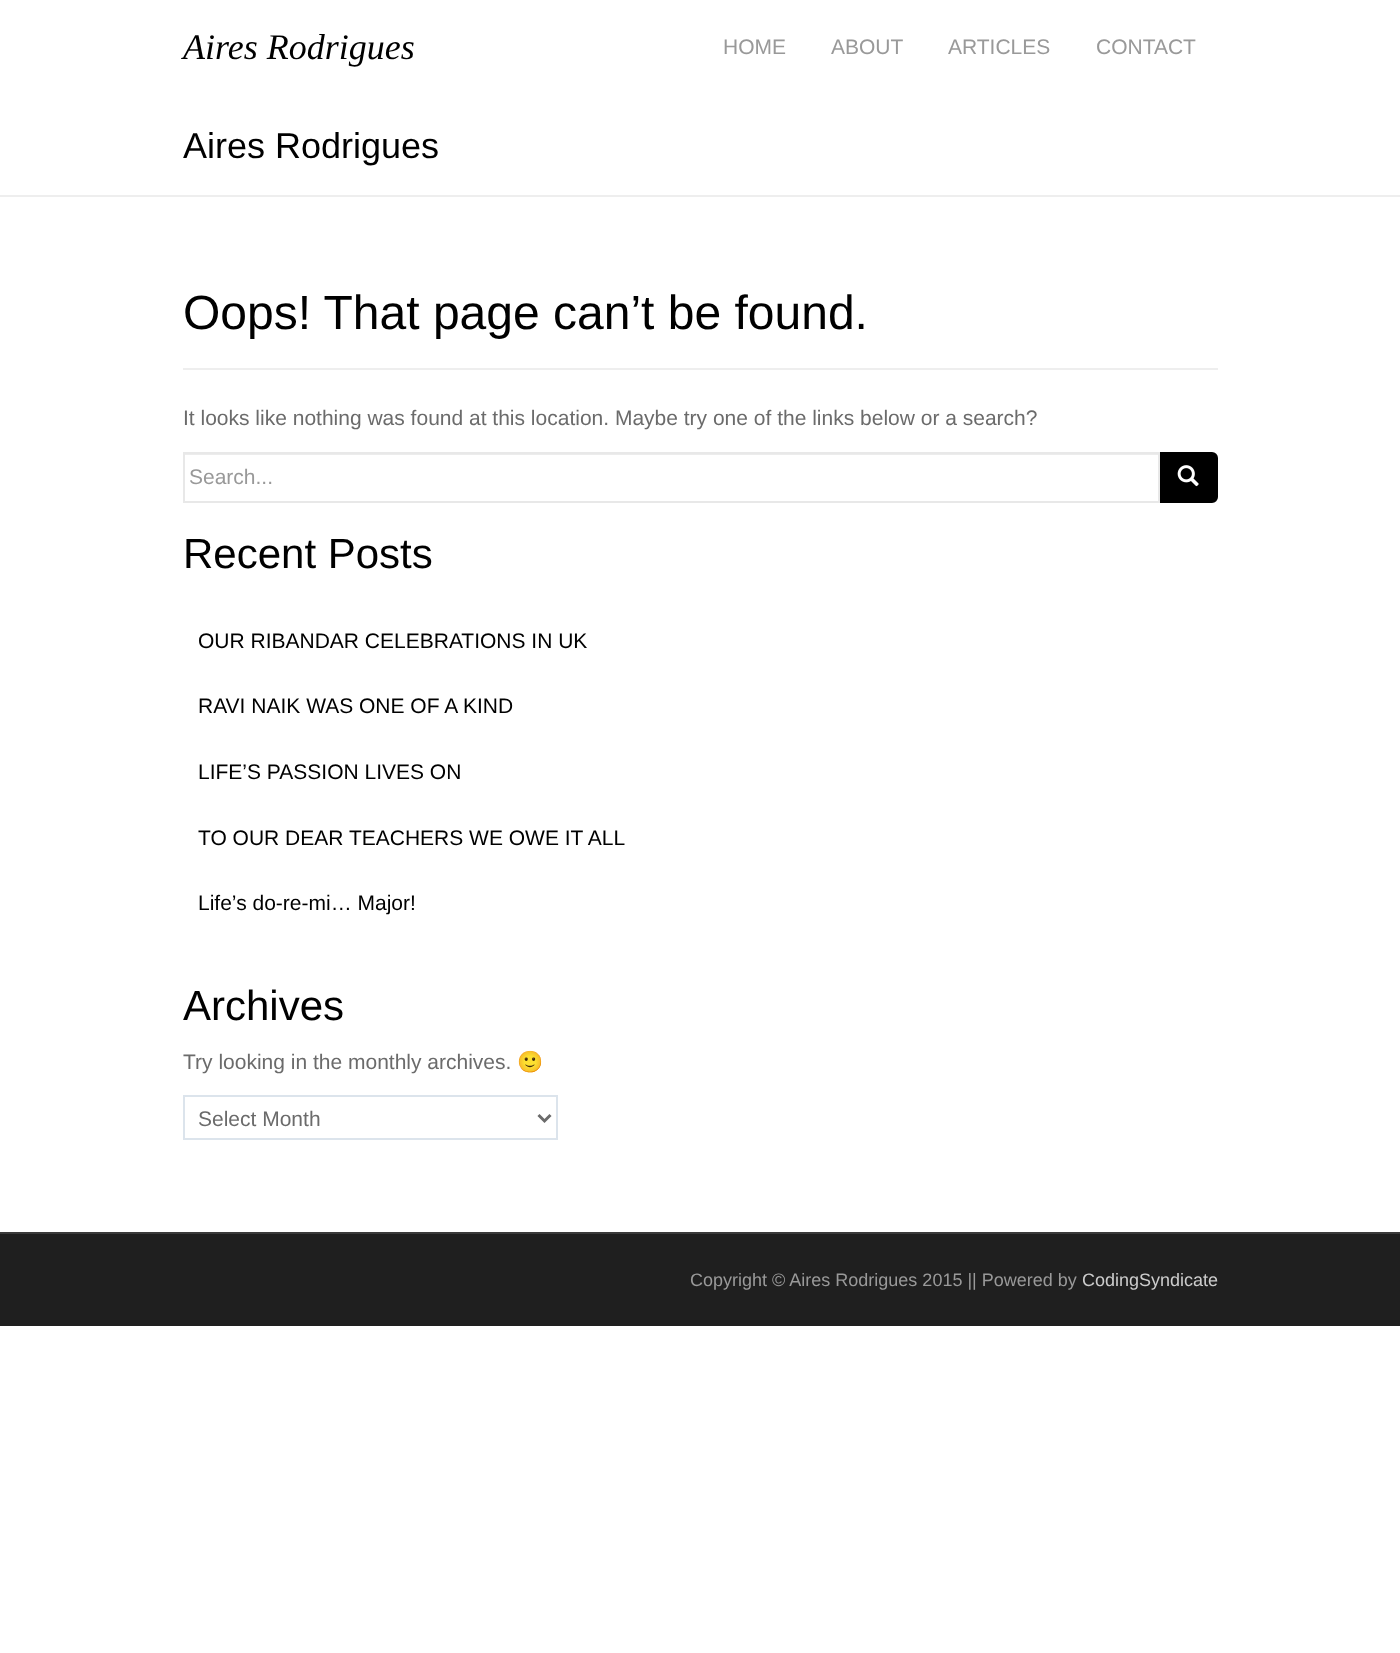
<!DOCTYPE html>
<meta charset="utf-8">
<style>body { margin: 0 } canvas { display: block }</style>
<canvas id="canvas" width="1400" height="1653"></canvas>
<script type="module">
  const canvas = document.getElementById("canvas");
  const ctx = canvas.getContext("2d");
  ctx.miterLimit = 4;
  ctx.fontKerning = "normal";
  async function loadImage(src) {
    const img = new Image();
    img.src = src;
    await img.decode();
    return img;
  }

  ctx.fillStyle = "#ffffff";
  ctx.fillRect(0, 0, 1400, 1653);
  ctx.fillStyle = "#eeeeee";
  ctx.fillRect(0, 195, 1400, 2);
  ctx.font = "italic 36px Liberation Serif";
  ctx.fillStyle = "#000000";
  ctx.fillText("Aires Rodrigues", 183, 59);
  ctx.font = "36px Liberation Sans";
  ctx.fillText("Aires Rodrigues", 183, 158);
  ctx.font = "21px Liberation Sans";
  ctx.fillStyle = "#999999";
  ctx.fillText("HOME", 723, 54);
  ctx.fillText("ABOUT", 831, 54);
  ctx.fillText("ARTICLES", 948, 54);
  ctx.fillText("CONTACT", 1096, 54);
  ctx.fillStyle = "#eeeeee";
  ctx.fillRect(183, 368, 1035, 2);
  ctx.font = "48px Liberation Sans";
  ctx.fillStyle = "#000000";
  ctx.fillText("Oops! That page can’t be found.", 183, 329);
  ctx.font = "21px Liberation Sans";
  ctx.fillStyle = "#6b6b6b";
  ctx.fillText("It looks like nothing was found at this location. Maybe try one of the links below or a search?", 183, 425);
  ctx.fillStyle = "#ececec";
  ctx.fillRect(185, 454, 973, 1);
  ctx.fillStyle = "#000000";
  ctx.beginPath();
  ctx.roundRect(1159, 453, 58, 49, [0, 5, 5, 0]);
  ctx.fill();
  ctx.strokeStyle = "#000000";
  ctx.lineWidth = 2;
  ctx.stroke();
  ctx.strokeStyle = "#e8e8e8";
  ctx.strokeRect(184, 453, 975, 49);
  ctx.fillStyle = "#999999";
  ctx.fillText("Search...", 189, 484);
  ctx.drawImage(await loadImage("img1.png"), 1177, 465, 22, 22);
  ctx.font = "42px Liberation Sans";
  ctx.fillStyle = "#000000";
  ctx.fillText("Recent Posts", 183, 568);
  ctx.font = "21px Liberation Sans";
  ctx.fillText("OUR RIBANDAR CELEBRATIONS IN UK", 198, 648);
  ctx.fillText("RAVI NAIK WAS ONE OF A KIND", 198, 713);
  ctx.fillText("LIFE’S PASSION LIVES ON", 198, 779);
  ctx.fillText("TO OUR DEAR TEACHERS WE OWE IT ALL", 198, 845);
  ctx.fillText("Life’s do-re-mi… Major!", 198, 910);
  ctx.font = "42px Liberation Sans";
  ctx.fillText("Archives", 183, 1020);
  ctx.font = "21px Liberation Sans";
  ctx.fillStyle = "#6b6b6b";
  ctx.fillText("Try looking in the monthly archives.", 183, 1069);
  ctx.font = "21px Noto Color Emoji";
  ctx.fillText("🙂", 517, 1069);
  ctx.strokeStyle = "#dce4ec";
  ctx.strokeRect(184, 1096, 373, 43);
  ctx.beginPath();
  ctx.moveTo(538.5, 1115);
  ctx.lineTo(544.5, 1121);
  ctx.lineTo(550.5, 1115);
  ctx.strokeStyle = "#6b6b6b";
  ctx.lineWidth = 3;
  ctx.stroke();
  ctx.font = "21px Liberation Sans";
  ctx.fillText("Select Month", 198, 1126);
  ctx.fillStyle = "#1f1f1f";
  ctx.fillRect(0, 1234, 1400, 92);
  ctx.fillStyle = "#3a3a3a";
  ctx.fillRect(0, 1232, 1400, 2);
  ctx.font = "18px Liberation Sans";
  ctx.fillStyle = "#999999";
  ctx.fillText("Copyright © Aires Rodrigues 2015 || Powered by", 690, 1286);
  ctx.fillStyle = "#cccccc";
  ctx.fillText("CodingSyndicate", 1082, 1286);
</script>
